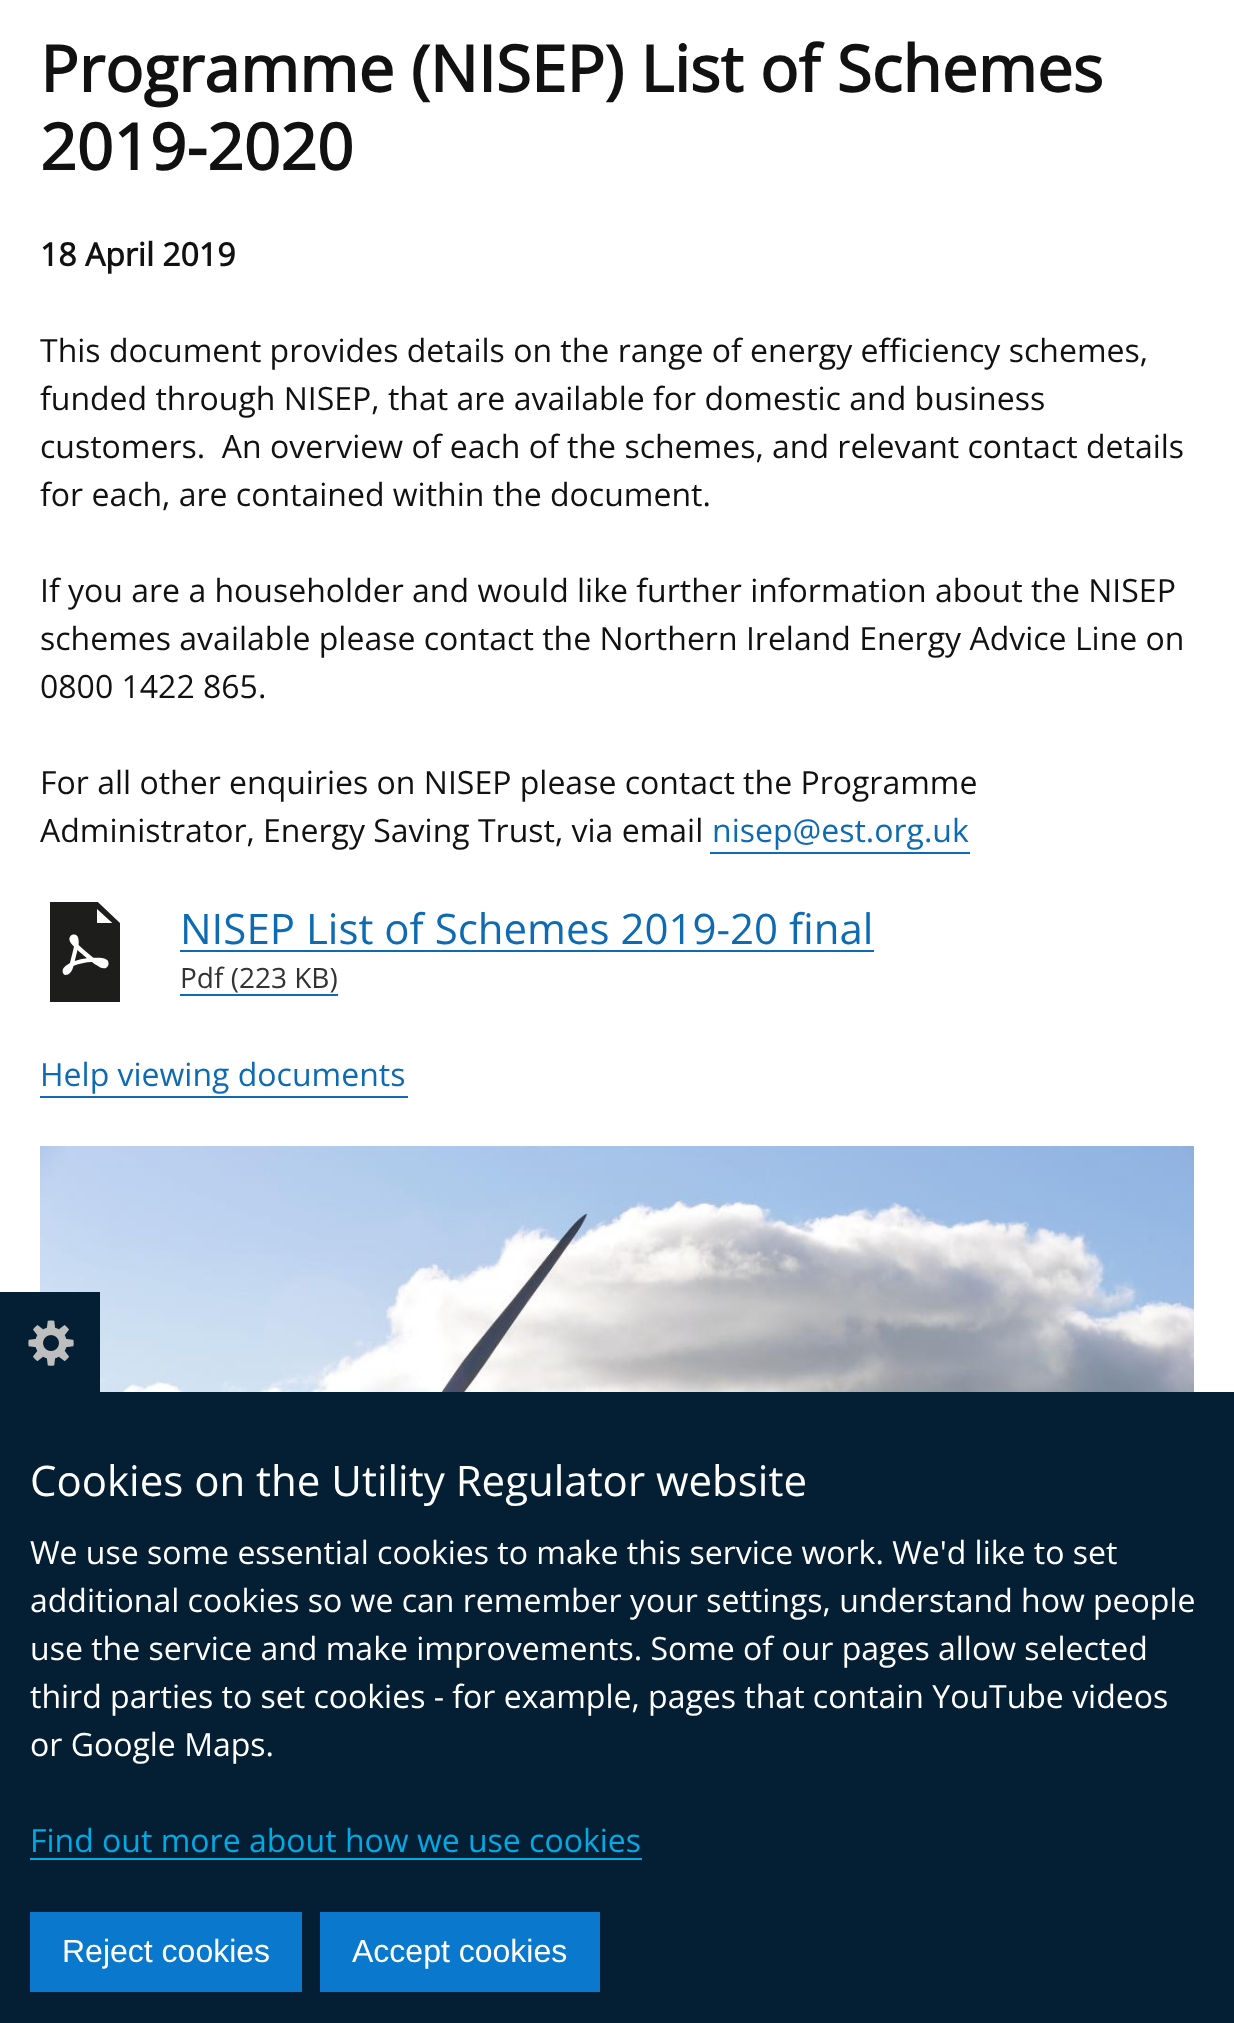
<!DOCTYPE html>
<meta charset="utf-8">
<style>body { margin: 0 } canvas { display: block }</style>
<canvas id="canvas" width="1234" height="2023"></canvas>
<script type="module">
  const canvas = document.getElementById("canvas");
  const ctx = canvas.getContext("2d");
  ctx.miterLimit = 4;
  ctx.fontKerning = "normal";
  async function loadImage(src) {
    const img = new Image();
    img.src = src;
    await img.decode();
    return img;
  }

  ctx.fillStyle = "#ffffff";
  ctx.fillRect(0, 0, 1234, 2023);
  ctx.font = "bold 64px Open Sans";
  ctx.fillStyle = "#111111";
  ctx.fillText("Programme (NISEP) List of Schemes", 40, 92);
  ctx.fillText("2019-2020", 40, 170);
  ctx.font = "bold 32px Open Sans";
  ctx.fillText("18 April 2019", 40, 266);
  ctx.font = "32px Open Sans";
  ctx.fillText("This document provides details on the range of energy efficiency schemes,", 40, 362);
  ctx.fillText("funded through NISEP, that are available for domestic and business", 40, 410);
  ctx.fillText("customers.  An overview of each of the schemes, and relevant contact details", 40, 458);
  ctx.fillText("for each, are contained within the document.", 40, 506);
  ctx.fillText("If you are a householder and would like further information about the NISEP", 40, 602);
  ctx.fillText("schemes available please contact the Northern Ireland Energy Advice Line on", 40, 650);
  ctx.fillText("0800 1422 865.", 40, 698);
  ctx.fillText("For all other enquiries on NISEP please contact the Programme", 40, 794);
  ctx.fillText("Administrator, Energy Saving Trust, via email", 40, 842);
  ctx.fillStyle = "#0e6bb3";
  ctx.fillText("nisep@est.org.uk", 712, 842);
  ctx.fillRect(710, 852, 260, 2);
  ctx.drawImage(await loadImage("img1.png"), 50, 902, 70, 100);
  ctx.font = "42px Open Sans";
  ctx.fillText("NISEP List of Schemes 2019-20 final", 180, 944);
  ctx.fillRect(180, 950, 694, 2);
  ctx.font = "28px Open Sans";
  ctx.fillStyle = "#333333";
  ctx.fillText("Pdf (223 KB)", 180, 988);
  ctx.fillStyle = "#0e6bb3";
  ctx.fillRect(180, 994, 158, 2);
  ctx.font = "32px Open Sans";
  ctx.fillText("Help viewing documents", 40, 1086);
  ctx.fillRect(40, 1096, 368, 2);
  ctx.drawImage(await loadImage("img2.png"), 40, 1146, 1154, 246);
  ctx.fillStyle = "#041e34";
  ctx.fillRect(0, 1292, 100, 100);
  ctx.drawImage(await loadImage("img3.png"), 28, 1320, 46, 46);
  ctx.fillRect(0, 1392, 1234, 631);
  ctx.font = "42px Open Sans";
  ctx.fillStyle = "#ffffff";
  ctx.fillText("Cookies on the Utility Regulator website", 30, 1496);
  ctx.font = "32px Open Sans";
  ctx.fillText("We use some essential cookies to make this service work. We'd like to set", 30, 1564);
  ctx.fillText("additional cookies so we can remember your settings, understand how people", 30, 1612);
  ctx.fillText("use the service and make improvements. Some of our pages allow selected", 30, 1660);
  ctx.fillText("third parties to set cookies - for example, pages that contain YouTube videos", 30, 1708);
  ctx.fillText("or Google Maps.", 30, 1756);
  ctx.fillStyle = "#00aae5";
  ctx.fillText("Find out more about how we use cookies", 30, 1852);
  ctx.fillRect(30, 1858, 612, 2);
  ctx.fillStyle = "#0a78cd";
  ctx.fillRect(30, 1912, 272, 80);
  ctx.font = "32px Liberation Sans";
  ctx.fillStyle = "#ffffff";
  ctx.fillText("Reject cookies", 62, 1962);
  ctx.fillStyle = "#0a78cd";
  ctx.fillRect(320, 1912, 280, 80);
  ctx.fillStyle = "#ffffff";
  ctx.fillText("Accept cookies", 352, 1962);
</script>
